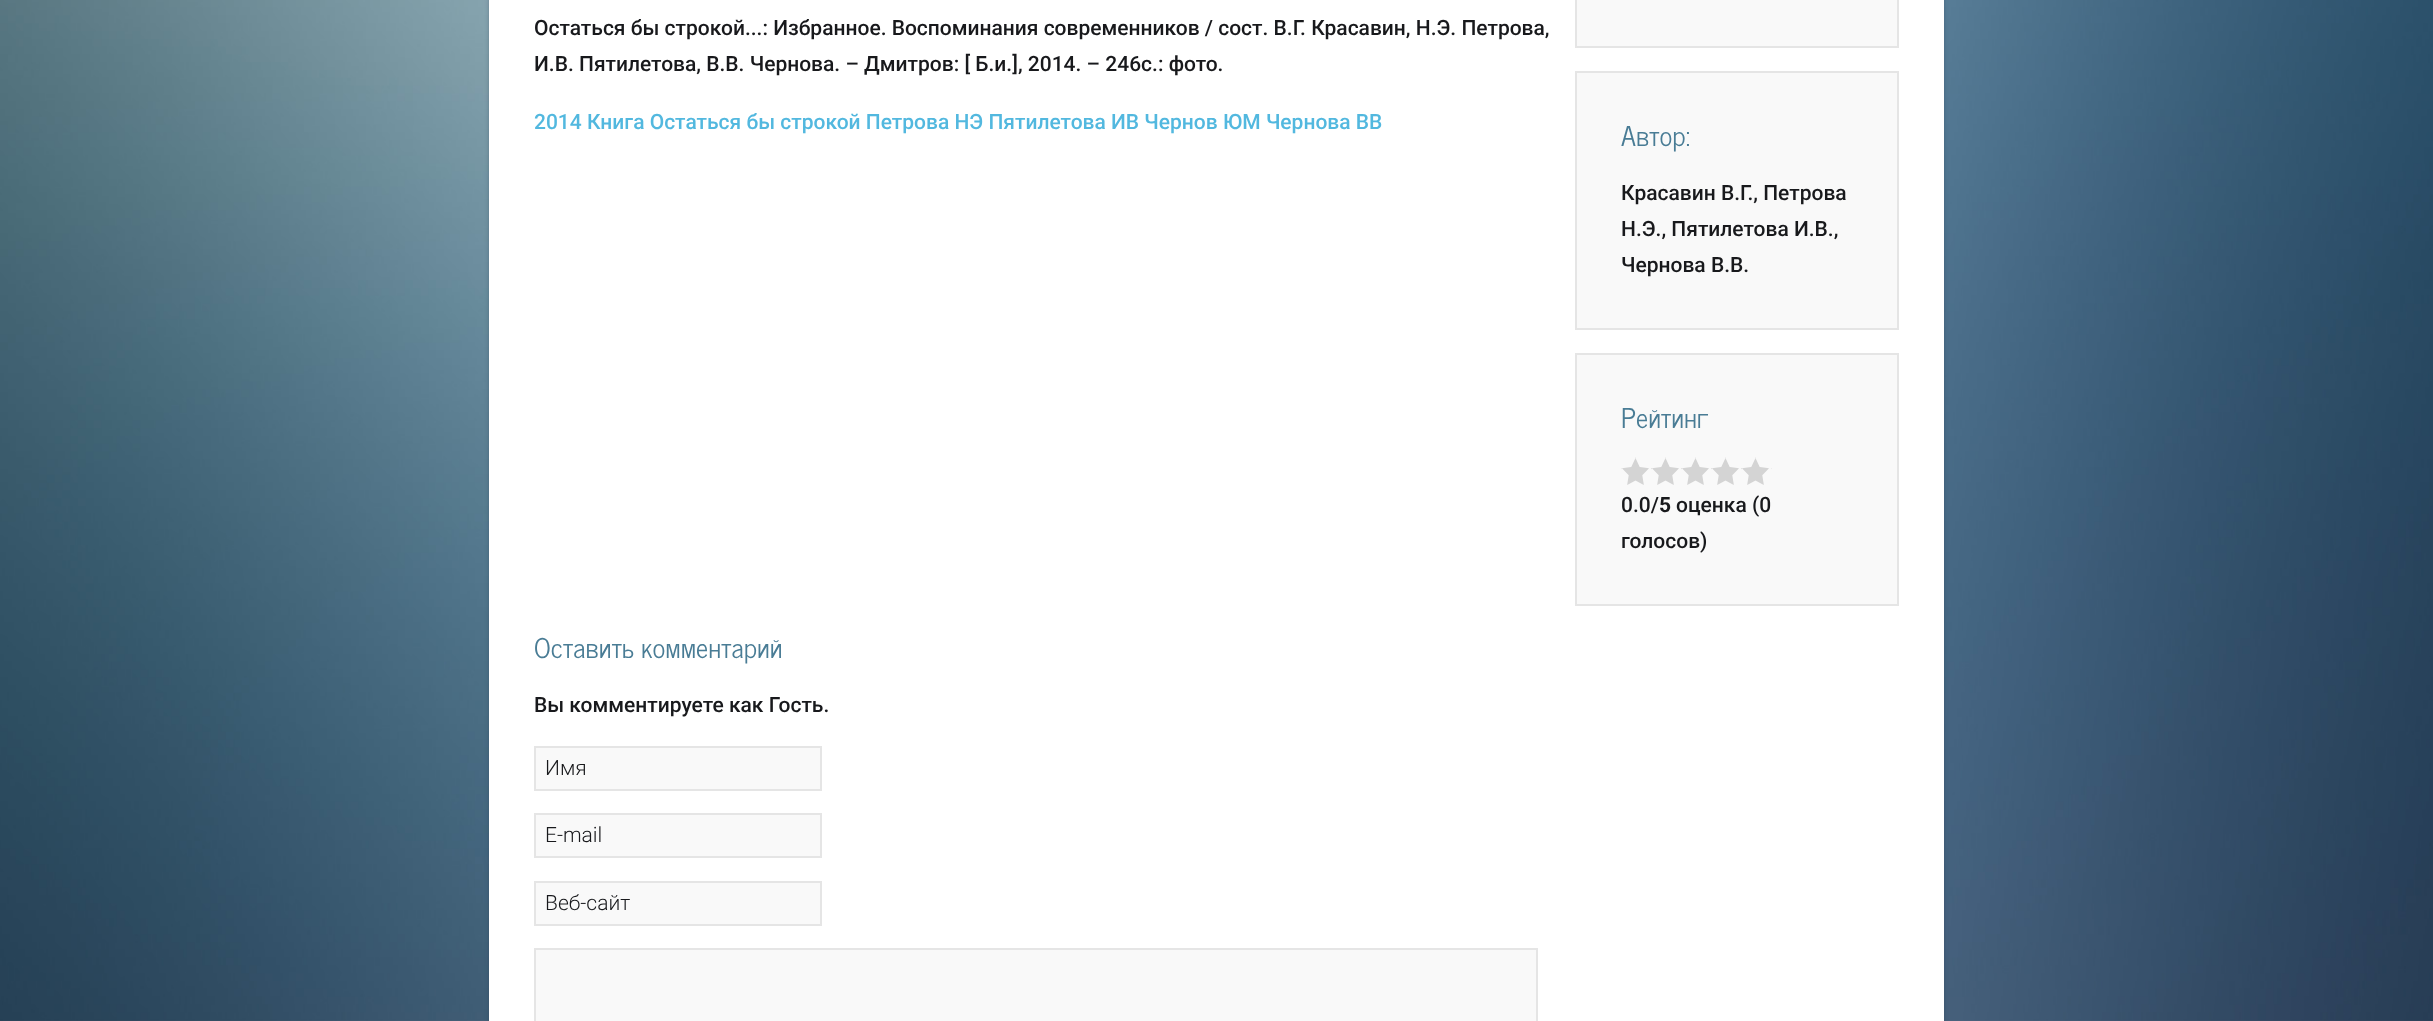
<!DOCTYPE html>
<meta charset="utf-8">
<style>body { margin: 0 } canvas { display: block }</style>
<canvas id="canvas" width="2433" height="1021"></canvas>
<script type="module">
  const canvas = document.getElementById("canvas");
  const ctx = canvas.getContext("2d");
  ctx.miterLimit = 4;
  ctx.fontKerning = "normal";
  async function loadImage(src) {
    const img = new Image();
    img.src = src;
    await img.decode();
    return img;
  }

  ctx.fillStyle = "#ffffff";
  ctx.fillRect(0, 0, 2433, 1021);
  ctx.drawImage(await loadImage("img1.png"), 0, 0, 2433, 1021);
  ctx.fillStyle = "rgba(30, 50, 70, 0.3)";
  ctx.filter = "blur(2px)";
  ctx.beginPath();
  ctx.rect(489, -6, 1455, 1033);
  ctx.fill();
  ctx.filter = "none";
  ctx.fillStyle = "#ffffff";
  ctx.fillRect(489, 0, 1455, 1021);
  ctx.font = "500 21px Roboto";
  ctx.fillStyle = "#18191c";
  ctx.fillText("Остаться бы строкой...: Избранное. Воспоминания современников / сост. В.Г. Красавин, Н.Э. Петрова,", 534, 35);
  ctx.fillText("И.В. Пятилетова, В.В. Чернова. – Дмитров: [ Б.и.], 2014. – 246c.: фото.", 534, 71);
  ctx.fillStyle = "#52b8df";
  ctx.fillText("2014 Книга Остаться бы строкой Петрова НЭ Пятилетова ИВ Чернов ЮМ Чернова ВВ", 534, 129);
  ctx.fillStyle = "#f9f9f9";
  ctx.beginPath();
  ctx.rect(1576, -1, 322, 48);
  ctx.fill();
  ctx.strokeStyle = "#e5e5e5";
  ctx.lineWidth = 2;
  ctx.stroke();
  ctx.beginPath();
  ctx.rect(1576, 72, 322, 257);
  ctx.fill();
  ctx.stroke();
  ctx.font = "27px News Cycle";
  ctx.fillStyle = "#497c95";
  ctx.fillText("Автор:", 1621, 146);
  ctx.font = "500 21px Roboto";
  ctx.fillStyle = "#18191c";
  ctx.fillText("Красавин В.Г., Петрова", 1621, 200);
  ctx.fillText("Н.Э., Пятилетова И.В.,", 1621, 236);
  ctx.fillText("Чернова В.В.", 1621, 272);
  ctx.fillStyle = "#f9f9f9";
  ctx.beginPath();
  ctx.rect(1576, 354, 322, 251);
  ctx.fill();
  ctx.stroke();
  ctx.font = "27px News Cycle";
  ctx.fillStyle = "#497c95";
  ctx.fillText("Рейтинг", 1621, 428);
  ctx.drawImage(await loadImage("img2.png"), 1621, 457, 151, 28);
  ctx.font = "500 21px Roboto";
  ctx.fillStyle = "#18191c";
  ctx.fillText("0.0/", 1621, 512);
  ctx.font = "bold 21px Roboto";
  ctx.fillText("5", 1659, 512);
  ctx.font = "500 21px Roboto";
  ctx.fillText("оценка (0", 1676, 512);
  ctx.fillText("голосов)", 1621, 548);
  ctx.font = "27px News Cycle";
  ctx.fillStyle = "#497c95";
  ctx.fillText("Оставить комментарий", 534, 658);
  ctx.font = "500 21px Roboto";
  ctx.fillStyle = "#18191c";
  ctx.fillText("Вы комментируете как Гость.", 534, 712);
  ctx.fillStyle = "#f9f9f9";
  ctx.beginPath();
  ctx.rect(535, 747, 286, 43);
  ctx.fill();
  ctx.stroke();
  ctx.font = "300 21px Roboto";
  ctx.fillStyle = "#18191c";
  ctx.fillText("Имя", 545, 775);
  ctx.fillStyle = "#f9f9f9";
  ctx.beginPath();
  ctx.rect(535, 814, 286, 43);
  ctx.fill();
  ctx.stroke();
  ctx.fillStyle = "#18191c";
  ctx.fillText("E-mail", 545, 842);
  ctx.fillStyle = "#f9f9f9";
  ctx.beginPath();
  ctx.rect(535, 882, 286, 43);
  ctx.fill();
  ctx.stroke();
  ctx.fillStyle = "#18191c";
  ctx.fillText("Веб-сайт", 545, 910);
  ctx.fillStyle = "#f9f9f9";
  ctx.beginPath();
  ctx.rect(535, 949, 1002, 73);
  ctx.fill();
  ctx.stroke();
</script>
